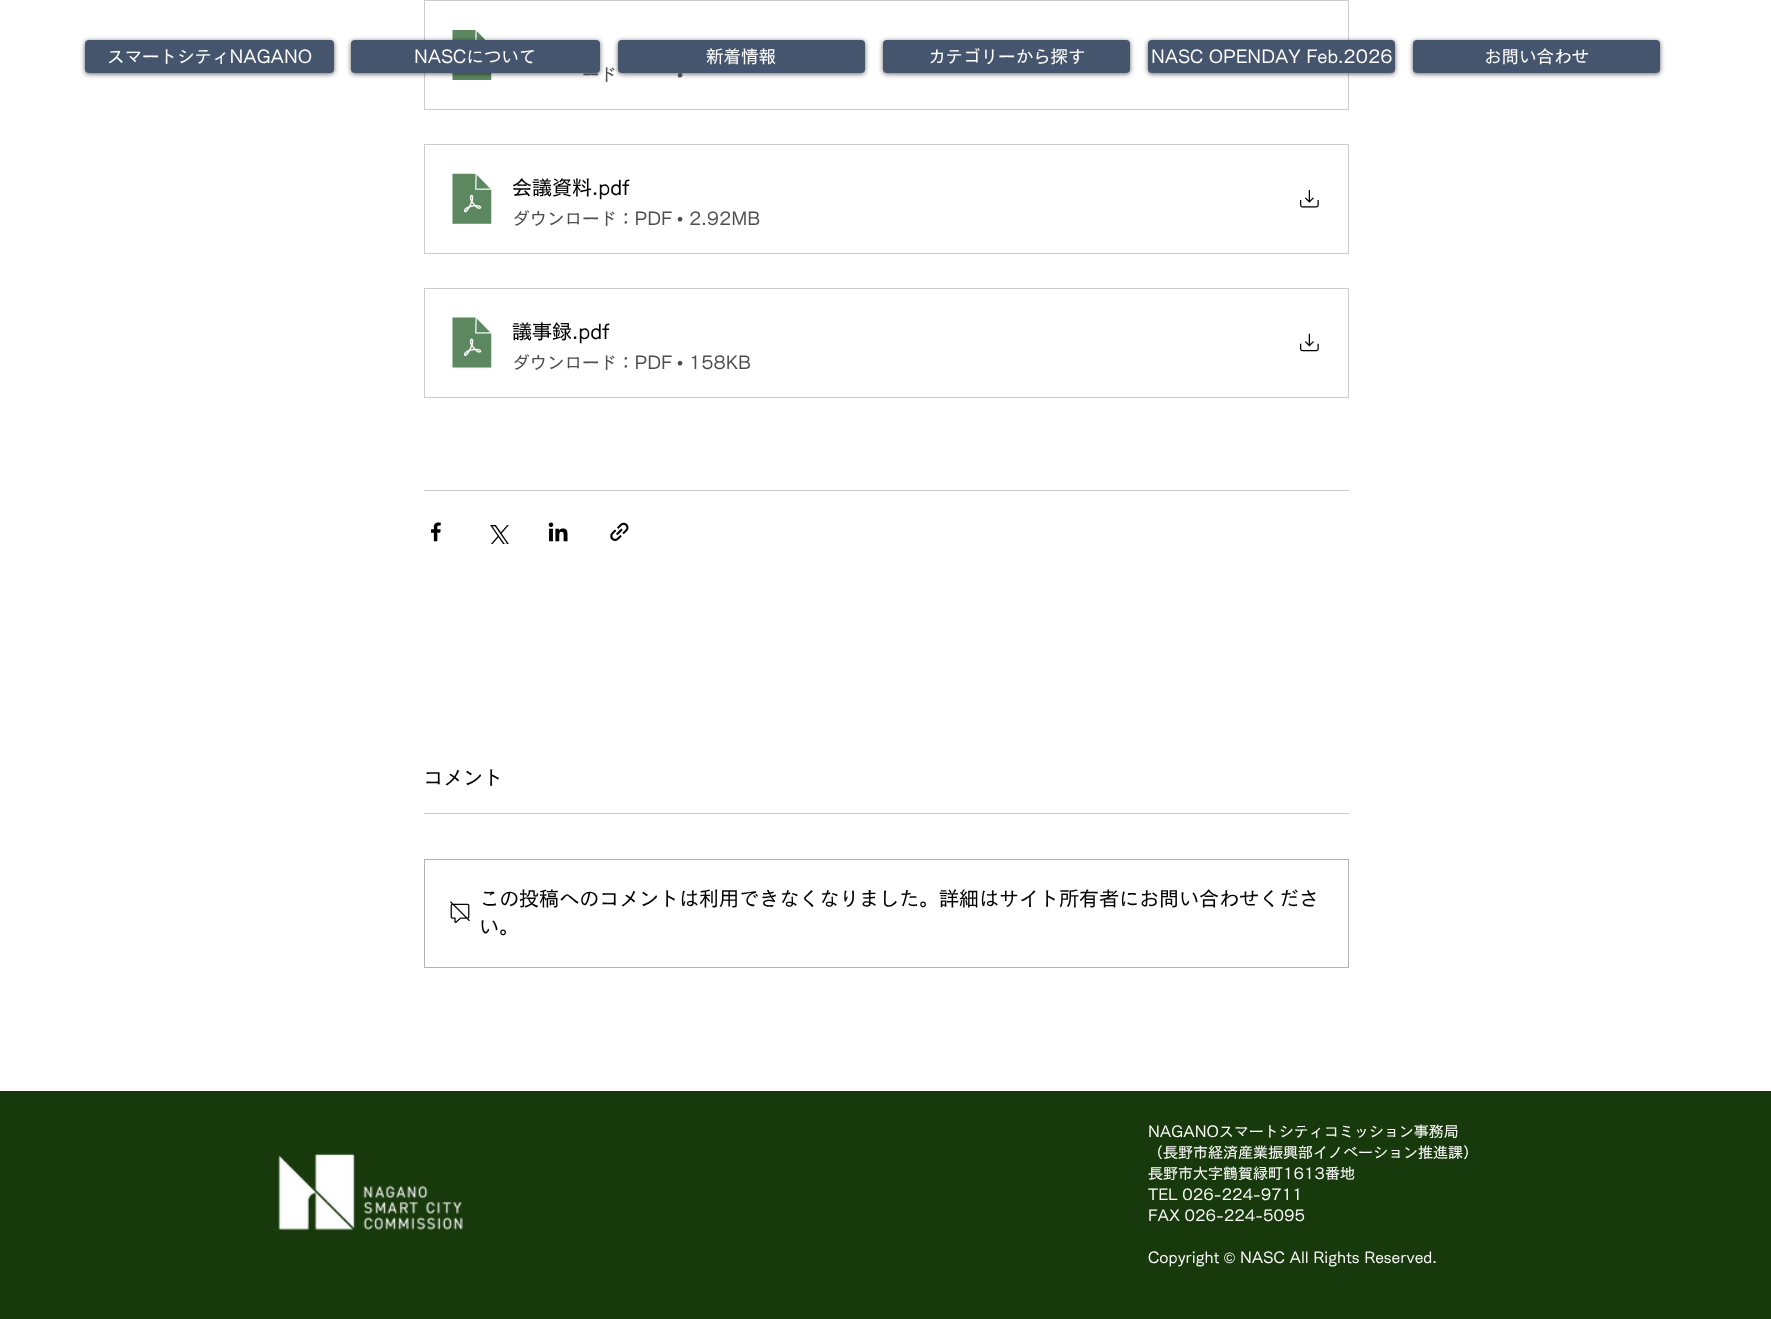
<!DOCTYPE html>
<meta charset="utf-8">
<style>body { margin: 0 } canvas { display: block }</style>
<canvas id="canvas" width="1771" height="1319"></canvas>
<script type="module">
  const canvas = document.getElementById("canvas");
  const ctx = canvas.getContext("2d");
  ctx.miterLimit = 4;
  ctx.fontKerning = "normal";
  async function loadImage(src) {
    const img = new Image();
    img.src = src;
    await img.decode();
    return img;
  }

  ctx.fillStyle = "#ffffff";
  ctx.fillRect(0, 0, 1771, 1319);
  ctx.fillStyle = "rgba(0, 0, 0, 0.6)";
  ctx.filter = "blur(2.5px)";
  ctx.beginPath();
  ctx.roundRect(85, 41, 249, 33, 4);
  ctx.fill();
  ctx.filter = "none";
  ctx.fillStyle = "#45556e";
  ctx.beginPath();
  ctx.roundRect(85, 40, 249, 33, 4);
  ctx.fill();
  ctx.font = "500 17.5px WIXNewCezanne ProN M";
  ctx.fillStyle = "#ffffff";
  ctx.fillText("スマートシティNAGANO", 107, 63);
  ctx.strokeStyle = "#cccccc";
  ctx.strokeRect(424.5, 0.5, 924, 109);
  ctx.drawImage(await loadImage("img1.png"), 451, 29, 41, 52);
  ctx.fillStyle = "rgba(0, 0, 0, 0.6)";
  ctx.filter = "blur(2.5px)";
  ctx.beginPath();
  ctx.roundRect(351, 41, 249, 33, 4);
  ctx.fill();
  ctx.filter = "none";
  ctx.fillStyle = "#4d4d4d";
  ctx.fillText("ード", 582, 81);
  ctx.fillStyle = "#45556e";
  ctx.beginPath();
  ctx.roundRect(351, 40, 249, 33, 4);
  ctx.fill();
  ctx.fillStyle = "#ffffff";
  ctx.fillText("NASCについて", 414, 63);
  ctx.fillStyle = "rgba(0, 0, 0, 0.6)";
  ctx.filter = "blur(2.5px)";
  ctx.beginPath();
  ctx.roundRect(618, 41, 247, 33, 4);
  ctx.fill();
  ctx.filter = "none";
  ctx.font = "17.5px Liberation Sans";
  ctx.fillStyle = "#4d4d4d";
  ctx.fillText("•", 677, 81);
  ctx.fillStyle = "#45556e";
  ctx.beginPath();
  ctx.roundRect(618, 40, 247, 33, 4);
  ctx.fill();
  ctx.font = "500 17.5px WIXNewCezanne ProN M";
  ctx.fillStyle = "#ffffff";
  ctx.fillText("新着情報", 706, 63);
  ctx.fillStyle = "rgba(0, 0, 0, 0.6)";
  ctx.filter = "blur(2.5px)";
  ctx.beginPath();
  ctx.roundRect(883, 41, 247, 33, 4);
  ctx.fill();
  ctx.filter = "none";
  ctx.fillStyle = "#45556e";
  ctx.beginPath();
  ctx.roundRect(883, 40, 247, 33, 4);
  ctx.fill();
  ctx.fillStyle = "#ffffff";
  ctx.fillText("カテゴリーから探す", 928, 63);
  ctx.fillStyle = "rgba(0, 0, 0, 0.6)";
  ctx.filter = "blur(2.5px)";
  ctx.beginPath();
  ctx.roundRect(1148, 41, 247, 33, 4);
  ctx.fill();
  ctx.filter = "none";
  ctx.fillStyle = "#45556e";
  ctx.beginPath();
  ctx.roundRect(1148, 40, 247, 33, 4);
  ctx.fill();
  ctx.fillStyle = "#ffffff";
  ctx.fillText("NASC OPENDAY Feb.2026", 1151, 63);
  ctx.fillStyle = "rgba(0, 0, 0, 0.6)";
  ctx.filter = "blur(2.5px)";
  ctx.beginPath();
  ctx.roundRect(1413, 41, 247, 33, 4);
  ctx.fill();
  ctx.filter = "none";
  ctx.fillStyle = "#45556e";
  ctx.beginPath();
  ctx.roundRect(1413, 40, 247, 33, 4);
  ctx.fill();
  ctx.fillStyle = "#ffffff";
  ctx.fillText("お問い合わせ", 1484, 63);
  ctx.strokeRect(424.5, 144.5, 924, 109);
  ctx.drawImage(await loadImage("img2.png"), 451, 173, 41, 51);
  ctx.font = "500 20px WIXNewCezanne ProN M";
  ctx.fillStyle = "#000000";
  ctx.fillText("会議資料", 512, 195);
  ctx.fillText(".pdf", 592, 195);
  ctx.font = "500 17.5px WIXNewCezanne ProN M";
  ctx.fillStyle = "#4d4d4d";
  ctx.fillText("ダウンロード：PDF", 512, 225);
  ctx.font = "17.5px Liberation Sans";
  ctx.fillText("•", 677, 225);
  ctx.font = "500 17.5px WIXNewCezanne ProN M";
  ctx.fillText("2.92MB", 689, 225);
  ctx.drawImage(await loadImage("img3.png"), 1300, 190, 19, 18);
  ctx.strokeRect(424.5, 288.5, 924, 109);
  ctx.drawImage(await loadImage("img4.png"), 451, 316, 41, 53);
  ctx.font = "500 20px WIXNewCezanne ProN M";
  ctx.fillStyle = "#000000";
  ctx.fillText("議事録", 512, 339);
  ctx.fillText(".pdf", 572, 339);
  ctx.font = "500 17.5px WIXNewCezanne ProN M";
  ctx.fillStyle = "#4d4d4d";
  ctx.fillText("ダウンロード：PDF", 512, 369);
  ctx.font = "17.5px Liberation Sans";
  ctx.fillText("•", 677, 369);
  ctx.font = "500 17.5px WIXNewCezanne ProN M";
  ctx.fillText("158KB", 689, 369);
  ctx.drawImage(await loadImage("img5.png"), 1300, 333, 19, 19);
  ctx.fillStyle = "#cccccc";
  ctx.fillRect(424, 490, 925, 1);
  ctx.drawImage(await loadImage("img6.png"), 431, 522, 10, 20);
  ctx.drawImage(await loadImage("img7.png"), 490, 525, 19, 19);
  ctx.drawImage(await loadImage("img8.png"), 548, 522, 20, 20);
  ctx.drawImage(await loadImage("img9.png"), 610, 522, 19, 19);
  ctx.font = "500 20px WIXNewCezanne ProN M";
  ctx.fillStyle = "#000000";
  ctx.fillText("コメント", 423, 785);
  ctx.fillStyle = "#cccccc";
  ctx.fillRect(424, 813, 925, 1);
  ctx.strokeStyle = "#b3b3b3";
  ctx.strokeRect(424.5, 859.5, 924, 108);
  ctx.drawImage(await loadImage("img10.png"), 450, 901, 20, 22);
  ctx.fillStyle = "#000000";
  ctx.fillText("この投稿へのコメントは利用できなくなりました。詳細はサイト所有者にお問い合わせくださ", 479, 906);
  ctx.fillText("い。", 479, 934);
  ctx.fillStyle = "#18390c";
  ctx.fillRect(0, 1091, 1771, 228);
  ctx.drawImage(await loadImage("img11.png"), 278, 1153, 185, 77);
  ctx.font = "500 15px WIXNewCezanne ProN M";
  ctx.fillStyle = "#ffffff";
  ctx.fillText("NAGANOスマートシティコミッション事務局", 1148, 1137);
  ctx.fillText("（長野市経済産業振興部イノベーション推進課）", 1148, 1158);
  ctx.fillText("長野市大字鶴賀緑町1613番地", 1148, 1179);
  ctx.fillText("TEL 026-224-9711", 1148, 1200);
  ctx.fillText("FAX 026-224-5095", 1148, 1221);
  ctx.fillText("Copyright", 1148, 1263);
  ctx.font = "15px Liberation Sans";
  ctx.fillText("©", 1224, 1263);
  ctx.font = "500 15px WIXNewCezanne ProN M";
  ctx.fillText("NASC All Rights Reserved.", 1240, 1263);
</script>
